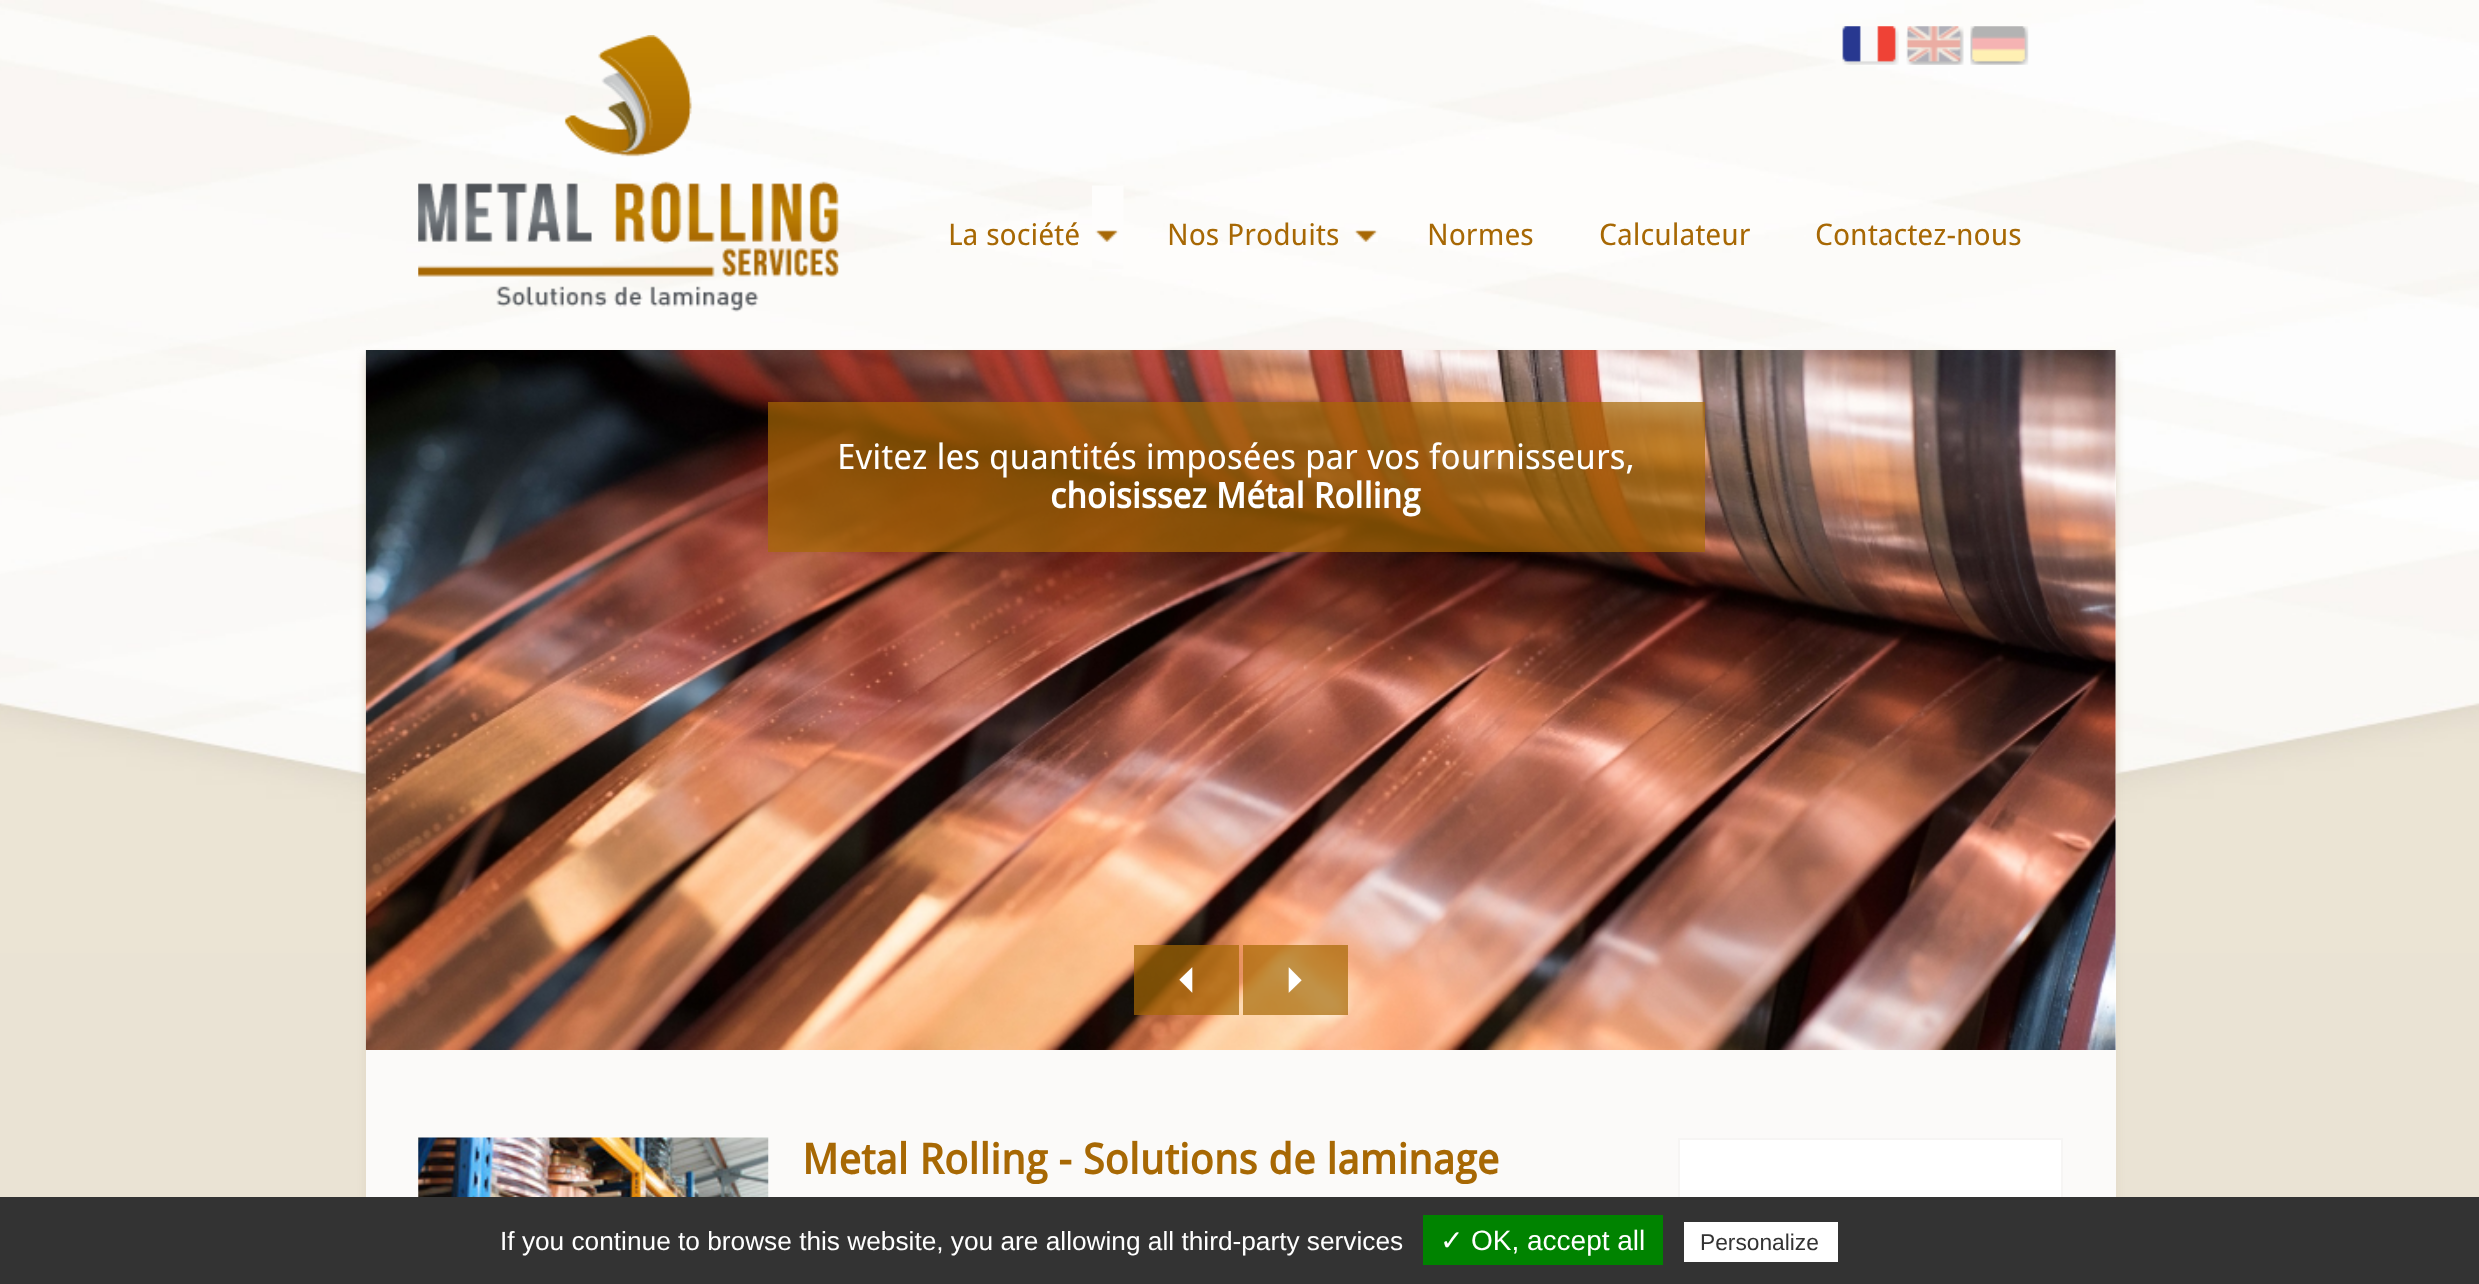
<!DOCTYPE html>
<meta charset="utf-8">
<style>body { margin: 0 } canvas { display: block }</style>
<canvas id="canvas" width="2479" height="1284"></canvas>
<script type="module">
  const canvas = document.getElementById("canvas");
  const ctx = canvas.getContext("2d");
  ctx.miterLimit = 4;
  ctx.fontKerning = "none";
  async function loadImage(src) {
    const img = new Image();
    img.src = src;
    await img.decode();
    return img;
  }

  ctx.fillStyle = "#eae3d4";
  ctx.fillRect(0, 0, 2479, 1284);
  ctx.drawImage(await loadImage("img1.png"), 0, 0, 2479, 953);
  ctx.drawImage(await loadImage("img2.png"), 418, 35, 421, 277);
  ctx.drawImage(await loadImage("img3.png"), 1842, 26, 57, 39);
  ctx.drawImage(await loadImage("img4.png"), 1906, 26, 58, 39);
  ctx.drawImage(await loadImage("img5.png"), 1970, 26, 59, 39);
  ctx.drawImage(await loadImage("img6.png"), 1092, 185, 32, 84);
  ctx.font = "29.75px Droid Sans";
  ctx.fillStyle = "#a76804";
  ctx.fillText("La société", 948, 245);
  ctx.drawImage(await loadImage("img7.png"), 1354, 230, 24, 12);
  ctx.fillText("Nos Produits", 1167, 245);
  ctx.fillText("Normes", 1427, 245);
  ctx.fillText("Calculateur", 1599, 245);
  ctx.fillText("Contactez-nous", 1815, 245);
  ctx.fillStyle = "#dfd6c3";
  ctx.filter = "blur(5px)";
  ctx.beginPath();
  ctx.rect(366, 357, 1750, 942);
  ctx.fill();
  ctx.filter = "none";
  ctx.fillStyle = "#ffffff";
  ctx.fillRect(2115, 350, 1, 700);
  ctx.drawImage(await loadImage("img8.png"), 365, 350, 1751, 700);
  ctx.fillStyle = "rgba(167, 104, 4, 0.7)";
  ctx.fillRect(768, 402, 937, 150);
  ctx.font = "35px Droid Sans";
  ctx.fillStyle = "#ffffff";
  ctx.fillText("Evitez les quantités imposées par vos fournisseurs,", 837, 469);
  ctx.font = "bold 35px Droid Sans";
  ctx.fillText("choisissez Métal Rolling", 1050, 508);
  ctx.fillStyle = "rgba(167, 104, 4, 0.7)";
  ctx.fillRect(1134, 945, 105, 70);
  ctx.font = "bold 35px FreeSans";
  ctx.fillStyle = "#ffffff";
  ctx.fillText("🞀", 1179, 992);
  ctx.fillStyle = "rgba(167, 104, 4, 0.7)";
  ctx.fillRect(1243, 945, 105, 70);
  ctx.fillStyle = "#ffffff";
  ctx.fillText("🞂", 1287, 992);
  ctx.fillStyle = "#fbfaf9";
  ctx.fillRect(366, 1050, 1750, 147);
  ctx.drawImage(await loadImage("img9.png"), 418, 1137, 351, 60);
  ctx.font = "bold 42px Droid Sans";
  ctx.fillStyle = "#a76804";
  ctx.fillText("Metal Rolling - Solutions de laminage", 802, 1174);
  ctx.fillStyle = "#ffffff";
  ctx.fillRect(1680, 1140, 381, 57);
  ctx.strokeStyle = "#f6f5f4";
  ctx.lineWidth = 2;
  ctx.strokeRect(1679, 1139, 383, 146);
  ctx.fillStyle = "#333333";
  ctx.fillRect(0, 1197, 2479, 87);
  ctx.font = "26.25px Liberation Sans";
  ctx.fillStyle = "#ffffff";
  ctx.fillText("If you continue to browse this website, you are allowing all third-party services", 500, 1250);
  ctx.fillStyle = "#008300";
  ctx.fillRect(1423, 1215, 240, 50);
  ctx.font = "28px DejaVu Sans";
  ctx.fillStyle = "#ffffff";
  ctx.fillText("✓", 1440, 1250);
  ctx.font = "28px Liberation Sans";
  ctx.fillText("OK, accept all", 1471, 1250);
  ctx.fillRect(1684, 1222, 154, 40);
  ctx.font = "22.75px Liberation Sans";
  ctx.fillStyle = "#333333";
  ctx.fillText("Personalize", 1700, 1250);
</script>
